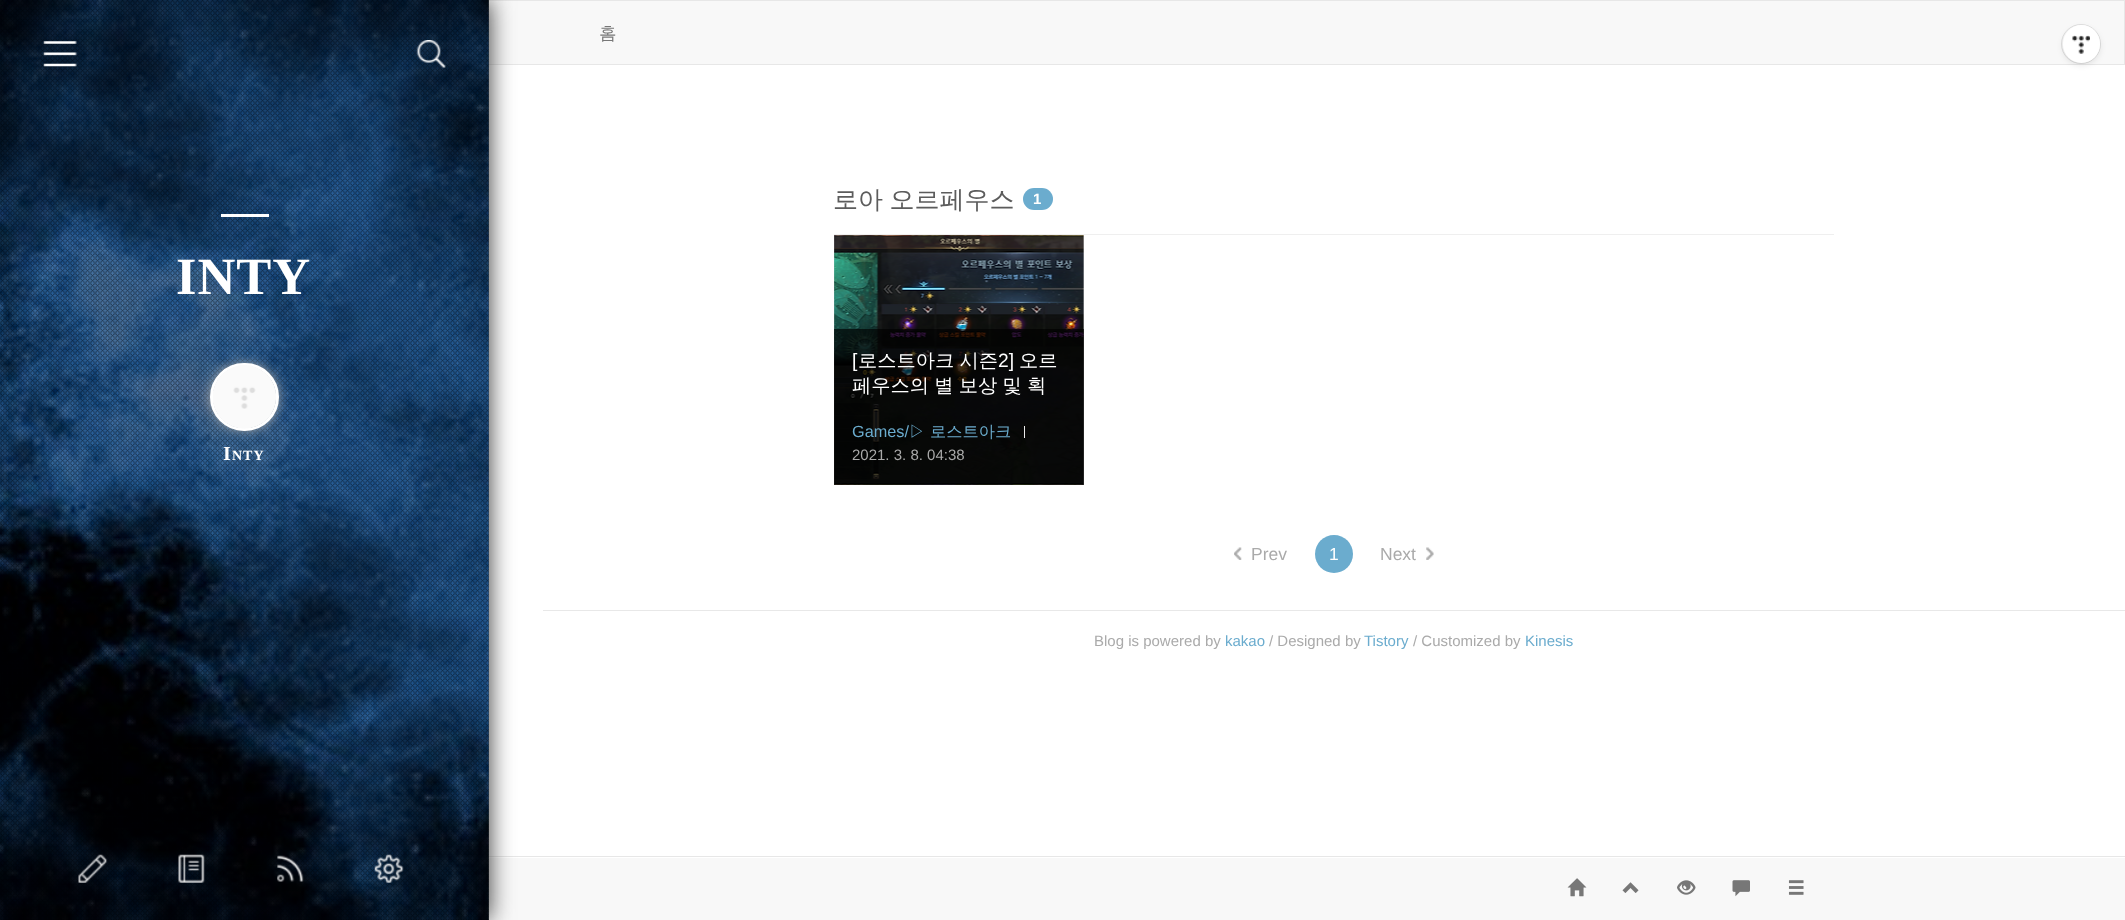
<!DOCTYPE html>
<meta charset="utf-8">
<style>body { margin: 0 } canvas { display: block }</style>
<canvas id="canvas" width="2125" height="920"></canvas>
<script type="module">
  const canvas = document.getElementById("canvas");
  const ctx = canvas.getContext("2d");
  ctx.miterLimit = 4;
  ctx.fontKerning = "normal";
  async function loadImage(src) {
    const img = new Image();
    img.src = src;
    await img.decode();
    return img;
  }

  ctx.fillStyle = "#ffffff";
  ctx.fillRect(0, 0, 2125, 920);
  ctx.fillStyle = "#f8f8f8";
  ctx.fillRect(488, 1, 1636, 63);
  ctx.strokeStyle = "#e7e7e7";
  ctx.strokeRect(0.5, 0.5, 2124, 64);
  ctx.font = "500 17.5px WenQuanYi Zen Hei";
  ctx.fillStyle = "#777777";
  ctx.fillText("홈", 599, 39);
  ctx.fillStyle = "rgba(0, 0, 0, 0.1)";
  ctx.filter = "blur(3px)";
  ctx.beginPath();
  ctx.roundRect(2063, 28, 37, 37, 18.5);
  ctx.fill();
  ctx.filter = "none";
  ctx.beginPath();
  ctx.arc(2081, 44, 19.5, 0, Math.PI * 2);
  ctx.strokeStyle = "rgba(0, 0, 0, 0.1)";
  ctx.stroke();
  ctx.fillStyle = "#ffffff";
  ctx.beginPath();
  ctx.roundRect(2063, 25, 37, 38, 18.5);
  ctx.fill();
  ctx.drawImage(await loadImage("img1.png"), 2072, 35, 18, 19);
  ctx.fillStyle = "#f8f8f8";
  ctx.fillRect(488, 858, 1637, 62);
  ctx.fillStyle = "#e7e7e7";
  ctx.fillRect(488, 856, 1637, 1);
  ctx.fillStyle = "#333333";
  ctx.filter = "blur(12.5px)";
  ctx.beginPath();
  ctx.rect(0, 0, 489, 920);
  ctx.fill();
  ctx.filter = "none";
  ctx.drawImage(await loadImage("img5.png"), 0, 0, 489, 920);
  ctx.drawImage(await loadImage("img6.png"), 0, 0, 489, 920);
  ctx.fillStyle = "rgba(0, 0, 0, 0.3)";
  ctx.fillRect(0, 0, 489, 920);
  ctx.drawImage(await loadImage("img2.png"), 43, 41, 34, 26);
  ctx.drawImage(await loadImage("img3.png"), 416, 40, 30, 28);
  ctx.fillStyle = "#ffffff";
  ctx.fillRect(221, 214, 48, 3);
  ctx.letterSpacing = "1px";
  ctx.font = "bold 52.5px Liberation Serif";
  ctx.fillText("INTY", 176, 294);
  ctx.fillStyle = "#aaaaaa";
  ctx.filter = "blur(6px)";
  ctx.beginPath();
  ctx.roundRect(210, 363, 69, 68, 34);
  ctx.fill();
  ctx.filter = "none";
  ctx.beginPath();
  ctx.roundRect(211.5, 364.5, 66, 65, 32.5);
  ctx.strokeStyle = "#ffffff";
  ctx.lineWidth = 3;
  ctx.stroke();
  ctx.drawImage(await loadImage("img4.png"), 213, 365, 63, 64);
  ctx.font = "bold 20px Liberation Serif";
  ctx.fillStyle = "#ffffff";
  ctx.fillText("I", 223, 460);
  ctx.font = "bold 14px Liberation Serif";
  ctx.fillText("NTY", 232, 460);
  ctx.drawImage(await loadImage("img7.png"), 78, 854, 30, 29);
  ctx.drawImage(await loadImage("img8.png"), 178, 854, 27, 29);
  ctx.drawImage(await loadImage("img9.png"), 277, 855, 27, 27);
  ctx.drawImage(await loadImage("img10.png"), 374, 854, 30, 29);
  ctx.fillStyle = "#efefef";
  ctx.fillRect(834, 234, 1000, 1);
  ctx.letterSpacing = "0px";
  ctx.wordSpacing = "-1px";
  ctx.font = "500 25px WenQuanYi Zen Hei";
  ctx.fillStyle = "#5c5c5c";
  ctx.fillText("로아 오르페우스", 833, 208);
  ctx.fillStyle = "#6bacce";
  ctx.beginPath();
  ctx.roundRect(1023, 188, 30, 22, 11);
  ctx.fill();
  ctx.wordSpacing = "0px";
  ctx.font = "bold 15px Liberation Sans";
  ctx.fillStyle = "#ffffff";
  ctx.fillText("1", 1033, 204);
  ctx.save();
  ctx.beginPath();
  ctx.rect(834, 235, 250, 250);
  ctx.clip();
  ctx.fillStyle = "rgba(0, 0, 0, 0.3)";
  ctx.filter = "blur(6px)";
  ctx.beginPath();
  ctx.rect(834, 235, 250, 250);
  ctx.fill();
  ctx.filter = "none";
  ctx.restore();
  ctx.drawImage(await loadImage("img11.png"), 834, 235, 250, 250);
  ctx.fillStyle = "rgba(0, 0, 0, 0.65)";
  ctx.fillRect(834, 329, 250, 156);
  ctx.font = "19.25px Liberation Sans";
  ctx.fillStyle = "#ffffff";
  ctx.fillText("[", 852, 367);
  ctx.wordSpacing = "-0.5px";
  ctx.font = "500 19.25px WenQuanYi Zen Hei";
  ctx.fillText("로스트아크 시즌", 858, 367);
  ctx.wordSpacing = "0px";
  ctx.font = "19.25px Liberation Sans";
  ctx.fillText("2]", 998, 367);
  ctx.font = "500 19.25px WenQuanYi Zen Hei";
  ctx.fillText("오르", 1019, 367);
  ctx.wordSpacing = "-0.5px";
  ctx.fillText("페우스의 별 보상 및 획", 852, 392);
  ctx.wordSpacing = "0px";
  ctx.font = "16.25px Liberation Sans";
  ctx.fillStyle = "#6bacce";
  ctx.fillText("Games/", 852, 437);
  ctx.font = "500 16.25px WenQuanYi Zen Hei";
  ctx.fillText("▷", 909, 437);
  ctx.fillText("로스트아크", 930, 437);
  ctx.fillStyle = "#ebebeb";
  ctx.fillRect(1024, 426, 1, 12);
  ctx.font = "15px Liberation Sans";
  ctx.fillStyle = "#aaaaaa";
  ctx.fillText("2021. 3. 8. 04:38", 852, 460);
  ctx.drawImage(await loadImage("img12.png"), 1234, 547, 8, 13);
  ctx.font = "17.5px Liberation Sans";
  ctx.fillText("Prev", 1251, 560);
  ctx.fillStyle = "#6bacce";
  ctx.beginPath();
  ctx.arc(1334, 554, 19, 0, Math.PI * 2);
  ctx.fill();
  ctx.fillStyle = "#ffffff";
  ctx.fillText("1", 1329, 560);
  ctx.fillStyle = "#aaaaaa";
  ctx.fillText("Next", 1380, 560);
  ctx.drawImage(await loadImage("img13.png"), 1426, 547, 8, 13);
  ctx.fillStyle = "#e8e8e8";
  ctx.fillRect(543, 610, 1582, 1);
  ctx.font = "15px Liberation Sans";
  ctx.fillStyle = "#aaaaaa";
  ctx.fillText("Blog is powered by", 1094, 646);
  ctx.fillStyle = "#6bacce";
  ctx.fillText("kakao", 1225, 646);
  ctx.fillStyle = "#aaaaaa";
  ctx.fillText("/ Designed by", 1269, 646);
  ctx.fillStyle = "#6bacce";
  ctx.fillText("Tistory", 1364, 646);
  ctx.fillStyle = "#aaaaaa";
  ctx.fillText("/ Customized by", 1413, 646);
  ctx.fillStyle = "#6bacce";
  ctx.fillText("Kinesis", 1525, 646);
  ctx.drawImage(await loadImage("img14.png"), 1567, 878, 20, 19);
  ctx.drawImage(await loadImage("img15.png"), 1622, 882, 17, 11);
  ctx.drawImage(await loadImage("img16.png"), 1677, 880, 19, 15);
  ctx.drawImage(await loadImage("img17.png"), 1732, 880, 18, 17);
  ctx.drawImage(await loadImage("img18.png"), 1788, 880, 16, 15);
</script>
